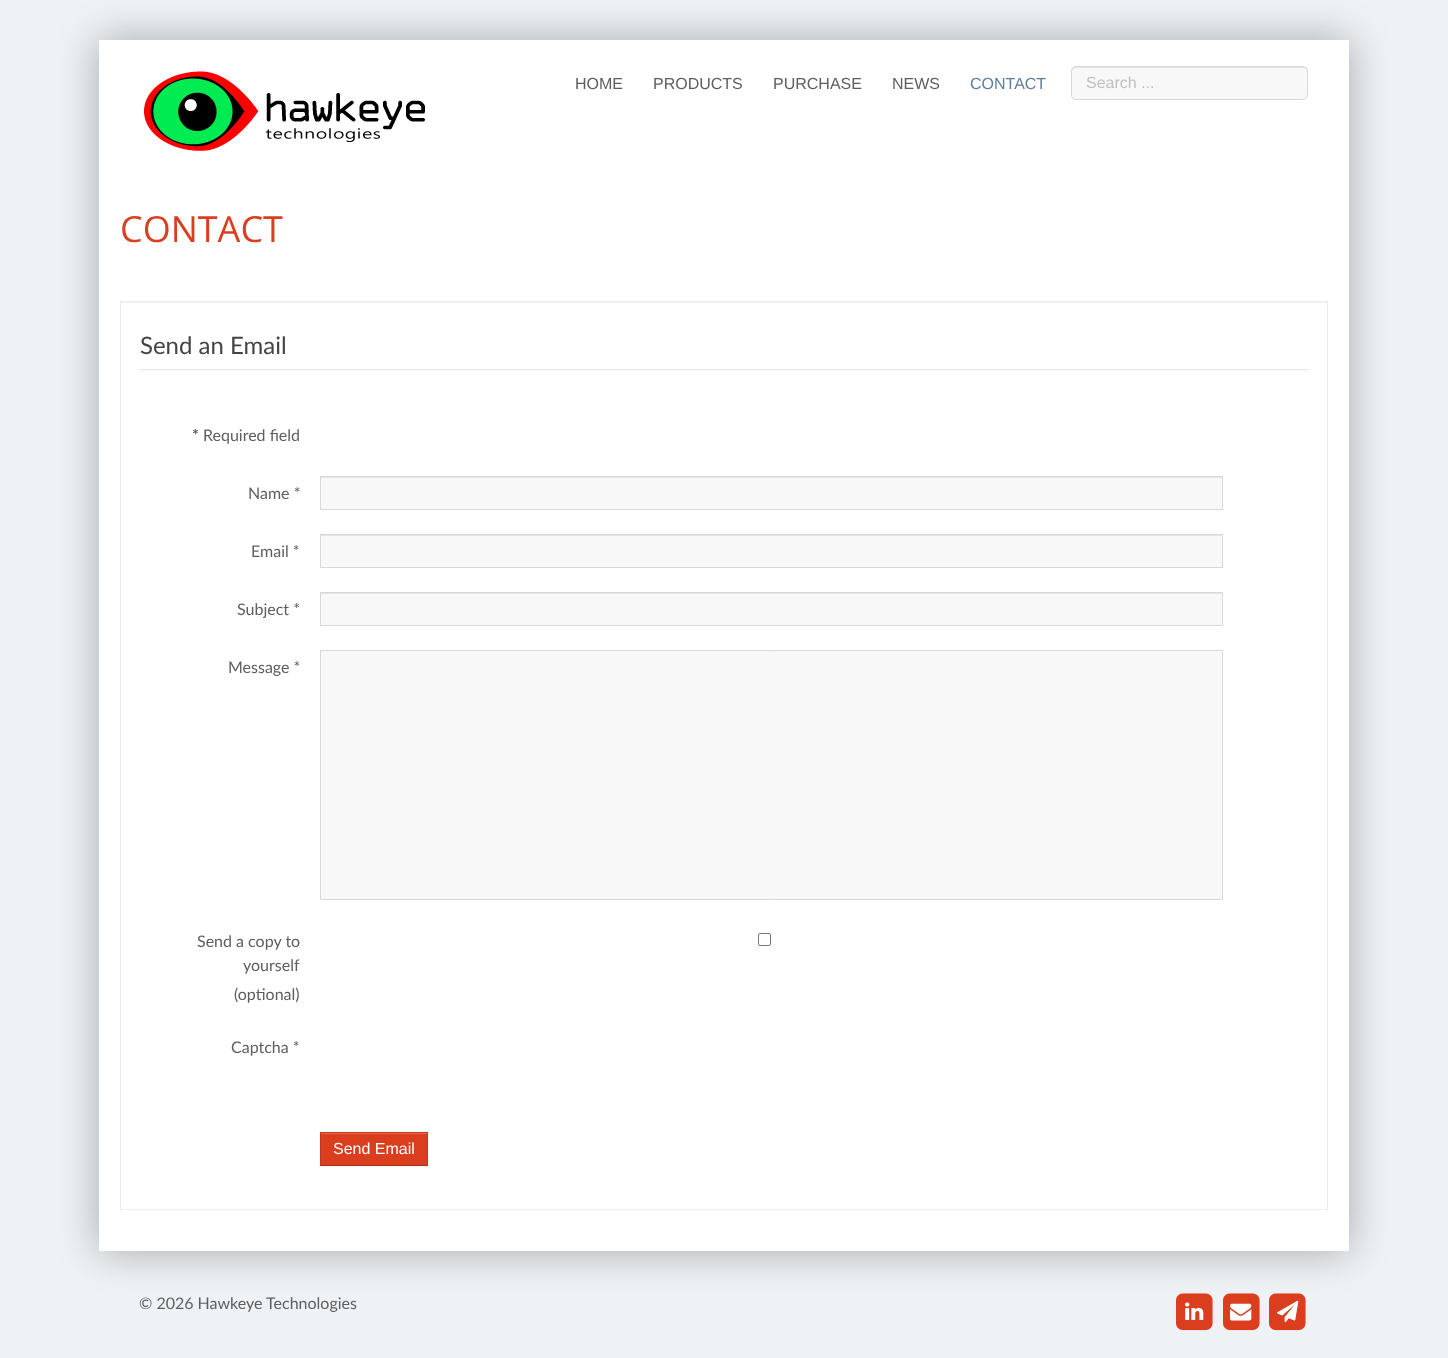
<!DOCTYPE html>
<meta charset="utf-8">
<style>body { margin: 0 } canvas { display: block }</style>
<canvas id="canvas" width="1448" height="1358"></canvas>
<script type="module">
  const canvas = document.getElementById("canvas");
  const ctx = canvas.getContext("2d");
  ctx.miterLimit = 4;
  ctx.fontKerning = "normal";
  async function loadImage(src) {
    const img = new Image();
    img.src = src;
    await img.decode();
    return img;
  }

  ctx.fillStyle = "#eef2f5";
  ctx.fillRect(0, 0, 1448, 1358);
  ctx.fillStyle = "rgba(0, 0, 0, 0.3)";
  ctx.filter = "blur(20px)";
  ctx.beginPath();
  ctx.rect(99, 40, 1250, 1211);
  ctx.fill();
  ctx.filter = "none";
  ctx.fillStyle = "#ffffff";
  ctx.fillRect(99, 40, 1250, 1211);
  ctx.drawImage(await loadImage("img1.png"), 144, 71, 281, 80);
  ctx.font = "16px Liberation Sans";
  ctx.fillStyle = "#5e5e5e";
  ctx.fillText("HOME", 575, 89);
  ctx.fillText("PRODUCTS", 653, 89);
  ctx.fillText("PURCHASE", 773, 89);
  ctx.fillText("NEWS", 892, 89);
  ctx.fillStyle = "#5f7e99";
  ctx.fillText("CONTACT", 970, 89);
  ctx.fillStyle = "#f8f8f9";
  ctx.beginPath();
  ctx.roundRect(1071, 66, 237, 34, 5);
  ctx.fill();
  ctx.fillStyle = "#e5e5e6";
  ctx.beginPath();
  ctx.moveTo(1076, 68);
  ctx.lineTo(1303, 68);
  ctx.bezierCurveTo(1305, 68, 1307, 70, 1307, 72);
  ctx.bezierCurveTo(1307, 69, 1306, 67, 1303, 67);
  ctx.lineTo(1076, 67);
  ctx.bezierCurveTo(1073, 67, 1072, 69, 1072, 72);
  ctx.bezierCurveTo(1072, 70, 1074, 68, 1076, 68);
  ctx.closePath();
  ctx.fill();
  ctx.beginPath();
  ctx.roundRect(1071.5, 66.5, 236, 33, 4.5);
  ctx.strokeStyle = "#d8d8d8";
  ctx.stroke();
  ctx.fillStyle = "#bfbfbf";
  ctx.fillText("Search ...", 1086, 88);
  ctx.font = "36px Open Sans";
  ctx.fillStyle = "#db3e1f";
  ctx.fillText("CONTACT", 120, 242);
  ctx.fillStyle = "#f2f2f2";
  ctx.fillRect(121, 302, 1206, 1);
  ctx.strokeStyle = "#ededed";
  ctx.strokeRect(120.5, 301.5, 1207, 908);
  ctx.fillStyle = "#e5e5e5";
  ctx.fillRect(140, 369, 1168, 1);
  ctx.font = "24px Lato";
  ctx.fillStyle = "#444444";
  ctx.fillText("Send an Email", 140, 354);
  ctx.font = "bold 16px Lato";
  ctx.fillStyle = "#5e5e5e";
  ctx.fillText("*", 192, 441);
  ctx.font = "16px Lato";
  ctx.fillText("Required field", 203, 441);
  ctx.fillText("Name *", 248, 499);
  ctx.fillStyle = "#f8f8f9";
  ctx.fillRect(321, 478, 901, 31);
  ctx.fillStyle = "#e5e5e6";
  ctx.fillRect(321, 477, 901, 1);
  ctx.strokeStyle = "#d8d8d8";
  ctx.strokeRect(320.5, 476.5, 902, 33);
  ctx.fillStyle = "#5e5e5e";
  ctx.fillText("Email *", 251, 557);
  ctx.fillStyle = "#f8f8f9";
  ctx.fillRect(321, 536, 901, 31);
  ctx.fillStyle = "#e5e5e6";
  ctx.fillRect(321, 535, 901, 1);
  ctx.strokeRect(320.5, 534.5, 902, 33);
  ctx.fillStyle = "#5e5e5e";
  ctx.fillText("Subject *", 237, 615);
  ctx.fillStyle = "#f8f8f9";
  ctx.fillRect(321, 594, 901, 31);
  ctx.fillStyle = "#e5e5e6";
  ctx.fillRect(321, 593, 901, 1);
  ctx.strokeRect(320.5, 592.5, 902, 33);
  ctx.fillStyle = "#5e5e5e";
  ctx.fillText("Message *", 228, 673);
  ctx.fillStyle = "#f8f8f9";
  ctx.beginPath();
  ctx.rect(320.5, 650.5, 902, 249);
  ctx.fill();
  ctx.stroke();
  ctx.fillStyle = "#5e5e5e";
  ctx.fillText("Send a copy to", 197, 947);
  ctx.fillText("yourself", 243, 971);
  ctx.fillText("(optional)", 234, 1000);
  ctx.beginPath();
  ctx.roundRect(758.5, 933.5, 12, 12, 1.5);
  ctx.strokeStyle = "#767676";
  ctx.stroke();
  ctx.fillText("Captcha *", 231, 1053);
  ctx.fillStyle = "rgba(0, 0, 0, 0.05)";
  ctx.filter = "blur(1px)";
  ctx.beginPath();
  ctx.rect(320, 1133, 108, 34);
  ctx.fill();
  ctx.filter = "none";
  ctx.fillStyle = "#db3e1f";
  ctx.fillRect(320, 1132, 108, 34);
  ctx.fillStyle = "#e2654c";
  ctx.fillRect(321, 1133, 106, 1);
  ctx.fillStyle = "#c5381c";
  ctx.beginPath();
  ctx.moveTo(320, 1132);
  ctx.lineTo(428, 1132);
  ctx.lineTo(427, 1133);
  ctx.lineTo(321, 1133);
  ctx.closePath();
  ctx.fill();
  ctx.fillStyle = "rgba(0, 0, 0, 0.1)";
  ctx.beginPath();
  ctx.moveTo(428, 1132);
  ctx.lineTo(428, 1166);
  ctx.lineTo(427, 1165);
  ctx.lineTo(427, 1133);
  ctx.closePath();
  ctx.fill();
  ctx.fillStyle = "rgba(0, 0, 0, 0.25)";
  ctx.beginPath();
  ctx.moveTo(428, 1166);
  ctx.lineTo(320, 1166);
  ctx.lineTo(321, 1165);
  ctx.lineTo(427, 1165);
  ctx.closePath();
  ctx.fill();
  ctx.fillStyle = "rgba(0, 0, 0, 0.1)";
  ctx.beginPath();
  ctx.moveTo(320, 1166);
  ctx.lineTo(320, 1132);
  ctx.lineTo(321, 1133);
  ctx.lineTo(321, 1165);
  ctx.closePath();
  ctx.fill();
  ctx.font = "16px Liberation Sans";
  ctx.fillStyle = "#ffffff";
  ctx.fillText("Send Email", 333, 1154);
  ctx.font = "16px Lato";
  ctx.fillStyle = "#5e5e5e";
  ctx.fillText("© 2026 Hawkeye Technologies", 139, 1309);
  ctx.drawImage(await loadImage("img2.png"), 1176, 1293, 37, 38);
  ctx.drawImage(await loadImage("img3.png"), 1185, 1302, 19, 18);
  ctx.drawImage(await loadImage("img2.png"), 1223, 1293, 37, 38);
  ctx.drawImage(await loadImage("img4.png"), 1230, 1303, 22, 18);
  ctx.drawImage(await loadImage("img2.png"), 1269, 1293, 37, 38);
  ctx.drawImage(await loadImage("img5.png"), 1277, 1300, 22, 22);
</script>
